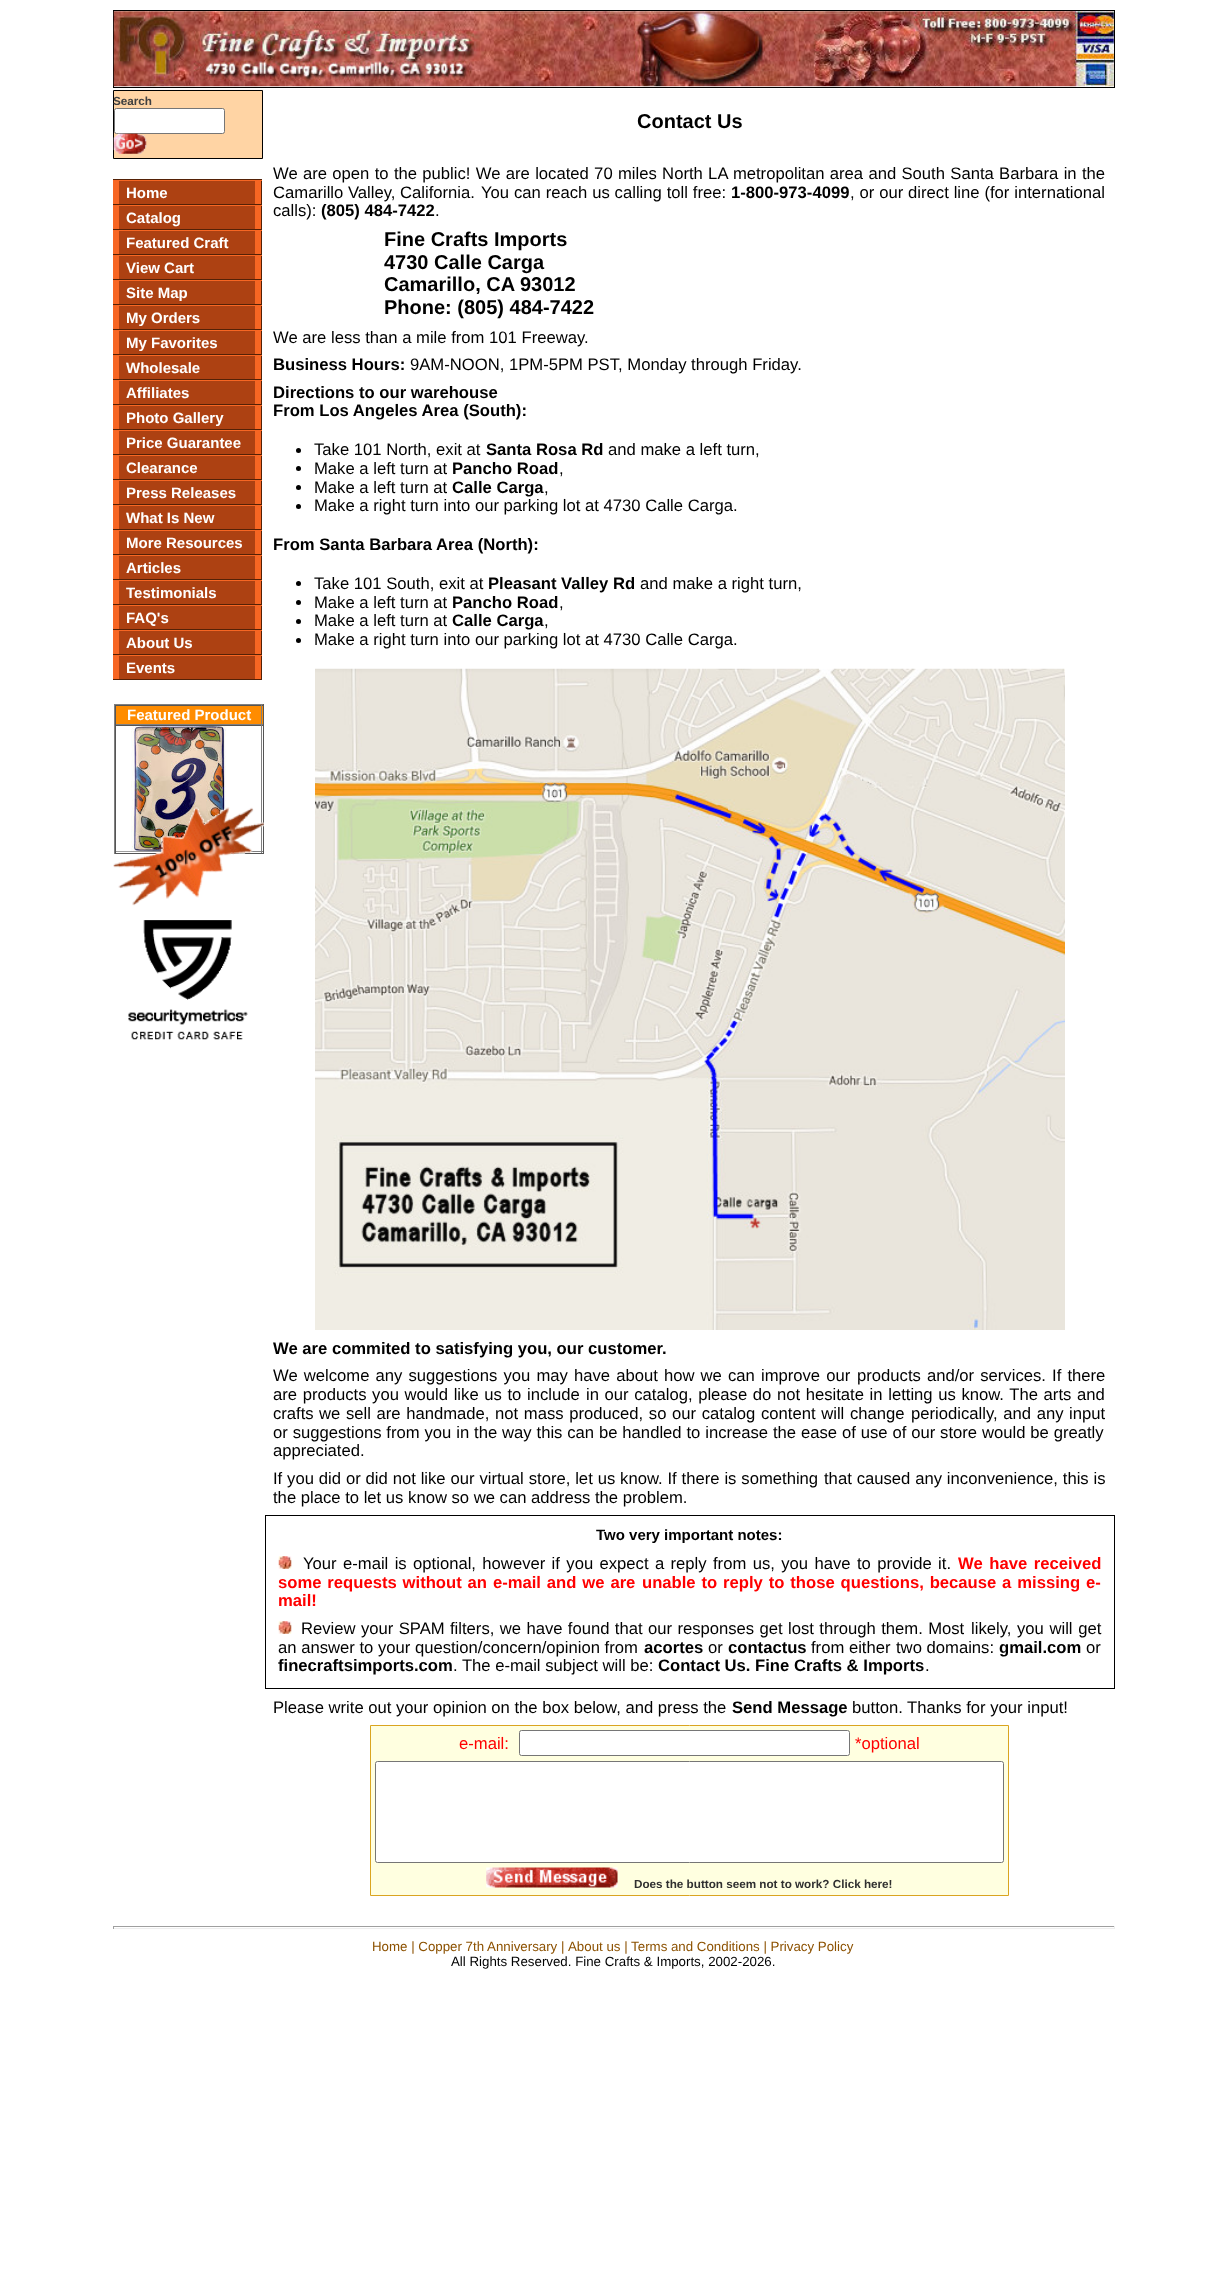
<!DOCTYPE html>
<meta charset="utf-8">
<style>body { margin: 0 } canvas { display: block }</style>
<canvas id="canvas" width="1226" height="2280"></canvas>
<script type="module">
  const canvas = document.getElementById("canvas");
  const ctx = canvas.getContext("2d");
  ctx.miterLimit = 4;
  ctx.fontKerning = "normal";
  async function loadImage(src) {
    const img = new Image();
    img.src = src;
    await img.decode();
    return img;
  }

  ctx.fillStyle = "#ffffff";
  ctx.fillRect(0, 0, 1226, 2280);
  ctx.strokeStyle = "#000000";
  ctx.strokeRect(113.5, 10.5, 1001, 77);
  ctx.drawImage(await loadImage("img1.png"), 113, 11, 1001, 76);
  ctx.fillStyle = "#ffd4a4";
  ctx.beginPath();
  ctx.rect(113.5, 90.5, 149, 68);
  ctx.fill();
  ctx.stroke();
  ctx.font = "bold 11.7px Liberation Sans";
  ctx.fillStyle = "#404040";
  ctx.fillText("Search", 113, 105);
  ctx.fillStyle = "#ffffff";
  ctx.beginPath();
  ctx.roundRect(114.5, 108.5, 110, 25, 2);
  ctx.fill();
  ctx.strokeStyle = "#767676";
  ctx.stroke();
  ctx.drawImage(await loadImage("img2.png"), 113, 133, 34, 21);
  ctx.fillStyle = "#542106";
  ctx.fillRect(113, 179, 149, 1);
  ctx.fillStyle = "#f76623";
  ctx.fillRect(113, 180, 149, 1);
  ctx.fillRect(113, 181, 6, 23);
  ctx.fillStyle = "#ad4112";
  ctx.fillRect(119, 181, 136, 23);
  ctx.font = "bold 15px Liberation Sans";
  ctx.fillStyle = "#ffffff";
  ctx.fillText("Home", 126, 198);
  ctx.fillStyle = "#f76623";
  ctx.fillRect(255, 181, 6, 23);
  ctx.fillStyle = "#542106";
  ctx.fillRect(261, 181, 1, 23);
  ctx.fillRect(113, 204, 149, 1);
  ctx.fillStyle = "#f76623";
  ctx.fillRect(113, 205, 149, 1);
  ctx.fillRect(113, 206, 6, 23);
  ctx.fillStyle = "#ad4112";
  ctx.fillRect(119, 206, 136, 23);
  ctx.fillStyle = "#ffffff";
  ctx.fillText("Catalog", 126, 223);
  ctx.fillStyle = "#f76623";
  ctx.fillRect(255, 206, 6, 23);
  ctx.fillStyle = "#542106";
  ctx.fillRect(261, 206, 1, 23);
  ctx.fillRect(113, 229, 149, 1);
  ctx.fillStyle = "#f76623";
  ctx.fillRect(113, 230, 149, 1);
  ctx.fillRect(113, 231, 6, 23);
  ctx.fillStyle = "#ad4112";
  ctx.fillRect(119, 231, 136, 23);
  ctx.fillStyle = "#ffffff";
  ctx.fillText("Featured Craft", 126, 248);
  ctx.fillStyle = "#f76623";
  ctx.fillRect(255, 231, 6, 23);
  ctx.fillStyle = "#542106";
  ctx.fillRect(261, 231, 1, 23);
  ctx.fillRect(113, 254, 149, 1);
  ctx.fillStyle = "#f76623";
  ctx.fillRect(113, 255, 149, 1);
  ctx.fillRect(113, 256, 6, 23);
  ctx.fillStyle = "#ad4112";
  ctx.fillRect(119, 256, 136, 23);
  ctx.fillStyle = "#ffffff";
  ctx.fillText("View Cart", 126, 273);
  ctx.fillStyle = "#f76623";
  ctx.fillRect(255, 256, 6, 23);
  ctx.fillStyle = "#542106";
  ctx.fillRect(261, 256, 1, 23);
  ctx.fillRect(113, 279, 149, 1);
  ctx.fillStyle = "#f76623";
  ctx.fillRect(113, 280, 149, 1);
  ctx.fillRect(113, 281, 6, 23);
  ctx.fillStyle = "#ad4112";
  ctx.fillRect(119, 281, 136, 23);
  ctx.fillStyle = "#ffffff";
  ctx.fillText("Site Map", 126, 298);
  ctx.fillStyle = "#f76623";
  ctx.fillRect(255, 281, 6, 23);
  ctx.fillStyle = "#542106";
  ctx.fillRect(261, 281, 1, 23);
  ctx.fillRect(113, 304, 149, 1);
  ctx.fillStyle = "#f76623";
  ctx.fillRect(113, 305, 149, 1);
  ctx.fillRect(113, 306, 6, 23);
  ctx.fillStyle = "#ad4112";
  ctx.fillRect(119, 306, 136, 23);
  ctx.fillStyle = "#ffffff";
  ctx.fillText("My Orders", 126, 323);
  ctx.fillStyle = "#f76623";
  ctx.fillRect(255, 306, 6, 23);
  ctx.fillStyle = "#542106";
  ctx.fillRect(261, 306, 1, 23);
  ctx.fillRect(113, 329, 149, 1);
  ctx.fillStyle = "#f76623";
  ctx.fillRect(113, 330, 149, 1);
  ctx.fillRect(113, 331, 6, 23);
  ctx.fillStyle = "#ad4112";
  ctx.fillRect(119, 331, 136, 23);
  ctx.fillStyle = "#ffffff";
  ctx.fillText("My Favorites", 126, 348);
  ctx.fillStyle = "#f76623";
  ctx.fillRect(255, 331, 6, 23);
  ctx.fillStyle = "#542106";
  ctx.fillRect(261, 331, 1, 23);
  ctx.fillRect(113, 354, 149, 1);
  ctx.fillStyle = "#f76623";
  ctx.fillRect(113, 355, 149, 1);
  ctx.fillRect(113, 356, 6, 23);
  ctx.fillStyle = "#ad4112";
  ctx.fillRect(119, 356, 136, 23);
  ctx.fillStyle = "#ffffff";
  ctx.fillText("Wholesale", 126, 373);
  ctx.fillStyle = "#f76623";
  ctx.fillRect(255, 356, 6, 23);
  ctx.fillStyle = "#542106";
  ctx.fillRect(261, 356, 1, 23);
  ctx.fillRect(113, 379, 149, 1);
  ctx.fillStyle = "#f76623";
  ctx.fillRect(113, 380, 149, 1);
  ctx.fillRect(113, 381, 6, 23);
  ctx.fillStyle = "#ad4112";
  ctx.fillRect(119, 381, 136, 23);
  ctx.fillStyle = "#ffffff";
  ctx.fillText("Affiliates", 126, 398);
  ctx.fillStyle = "#f76623";
  ctx.fillRect(255, 381, 6, 23);
  ctx.fillStyle = "#542106";
  ctx.fillRect(261, 381, 1, 23);
  ctx.fillRect(113, 404, 149, 1);
  ctx.fillStyle = "#f76623";
  ctx.fillRect(113, 405, 149, 1);
  ctx.fillRect(113, 406, 6, 23);
  ctx.fillStyle = "#ad4112";
  ctx.fillRect(119, 406, 136, 23);
  ctx.fillStyle = "#ffffff";
  ctx.fillText("Photo Gallery", 126, 423);
  ctx.fillStyle = "#f76623";
  ctx.fillRect(255, 406, 6, 23);
  ctx.fillStyle = "#542106";
  ctx.fillRect(261, 406, 1, 23);
  ctx.fillRect(113, 429, 149, 1);
  ctx.fillStyle = "#f76623";
  ctx.fillRect(113, 430, 149, 1);
  ctx.fillRect(113, 431, 6, 23);
  ctx.fillStyle = "#ad4112";
  ctx.fillRect(119, 431, 136, 23);
  ctx.fillStyle = "#ffffff";
  ctx.fillText("Price Guarantee", 126, 448);
  ctx.fillStyle = "#f76623";
  ctx.fillRect(255, 431, 6, 23);
  ctx.fillStyle = "#542106";
  ctx.fillRect(261, 431, 1, 23);
  ctx.fillRect(113, 454, 149, 1);
  ctx.fillStyle = "#f76623";
  ctx.fillRect(113, 455, 149, 1);
  ctx.fillRect(113, 456, 6, 23);
  ctx.fillStyle = "#ad4112";
  ctx.fillRect(119, 456, 136, 23);
  ctx.fillStyle = "#ffffff";
  ctx.fillText("Clearance", 126, 473);
  ctx.fillStyle = "#f76623";
  ctx.fillRect(255, 456, 6, 23);
  ctx.fillStyle = "#542106";
  ctx.fillRect(261, 456, 1, 23);
  ctx.fillRect(113, 479, 149, 1);
  ctx.fillStyle = "#f76623";
  ctx.fillRect(113, 480, 149, 1);
  ctx.fillRect(113, 481, 6, 23);
  ctx.fillStyle = "#ad4112";
  ctx.fillRect(119, 481, 136, 23);
  ctx.fillStyle = "#ffffff";
  ctx.fillText("Press Releases", 126, 498);
  ctx.fillStyle = "#f76623";
  ctx.fillRect(255, 481, 6, 23);
  ctx.fillStyle = "#542106";
  ctx.fillRect(261, 481, 1, 23);
  ctx.fillRect(113, 504, 149, 1);
  ctx.fillStyle = "#f76623";
  ctx.fillRect(113, 505, 149, 1);
  ctx.fillRect(113, 506, 6, 23);
  ctx.fillStyle = "#ad4112";
  ctx.fillRect(119, 506, 136, 23);
  ctx.fillStyle = "#ffffff";
  ctx.fillText("What Is New", 126, 523);
  ctx.fillStyle = "#f76623";
  ctx.fillRect(255, 506, 6, 23);
  ctx.fillStyle = "#542106";
  ctx.fillRect(261, 506, 1, 23);
  ctx.fillRect(113, 529, 149, 1);
  ctx.fillStyle = "#f76623";
  ctx.fillRect(113, 530, 149, 1);
  ctx.fillRect(113, 531, 6, 23);
  ctx.fillStyle = "#ad4112";
  ctx.fillRect(119, 531, 136, 23);
  ctx.fillStyle = "#ffffff";
  ctx.fillText("More Resources", 126, 548);
  ctx.fillStyle = "#f76623";
  ctx.fillRect(255, 531, 6, 23);
  ctx.fillStyle = "#542106";
  ctx.fillRect(261, 531, 1, 23);
  ctx.fillRect(113, 554, 149, 1);
  ctx.fillStyle = "#f76623";
  ctx.fillRect(113, 555, 149, 1);
  ctx.fillRect(113, 556, 6, 23);
  ctx.fillStyle = "#ad4112";
  ctx.fillRect(119, 556, 136, 23);
  ctx.fillStyle = "#ffffff";
  ctx.fillText("Articles", 126, 573);
  ctx.fillStyle = "#f76623";
  ctx.fillRect(255, 556, 6, 23);
  ctx.fillStyle = "#542106";
  ctx.fillRect(261, 556, 1, 23);
  ctx.fillRect(113, 579, 149, 1);
  ctx.fillStyle = "#f76623";
  ctx.fillRect(113, 580, 149, 1);
  ctx.fillRect(113, 581, 6, 23);
  ctx.fillStyle = "#ad4112";
  ctx.fillRect(119, 581, 136, 23);
  ctx.fillStyle = "#ffffff";
  ctx.fillText("Testimonials", 126, 598);
  ctx.fillStyle = "#f76623";
  ctx.fillRect(255, 581, 6, 23);
  ctx.fillStyle = "#542106";
  ctx.fillRect(261, 581, 1, 23);
  ctx.fillRect(113, 604, 149, 1);
  ctx.fillStyle = "#f76623";
  ctx.fillRect(113, 605, 149, 1);
  ctx.fillRect(113, 606, 6, 23);
  ctx.fillStyle = "#ad4112";
  ctx.fillRect(119, 606, 136, 23);
  ctx.fillStyle = "#ffffff";
  ctx.fillText("FAQ's", 126, 623);
  ctx.fillStyle = "#f76623";
  ctx.fillRect(255, 606, 6, 23);
  ctx.fillStyle = "#542106";
  ctx.fillRect(261, 606, 1, 23);
  ctx.fillRect(113, 629, 149, 1);
  ctx.fillStyle = "#f76623";
  ctx.fillRect(113, 630, 149, 1);
  ctx.fillRect(113, 631, 6, 23);
  ctx.fillStyle = "#ad4112";
  ctx.fillRect(119, 631, 136, 23);
  ctx.fillStyle = "#ffffff";
  ctx.fillText("About Us", 126, 648);
  ctx.fillStyle = "#f76623";
  ctx.fillRect(255, 631, 6, 23);
  ctx.fillStyle = "#542106";
  ctx.fillRect(261, 631, 1, 23);
  ctx.fillRect(113, 654, 149, 1);
  ctx.fillStyle = "#f76623";
  ctx.fillRect(113, 655, 149, 1);
  ctx.fillRect(113, 656, 6, 23);
  ctx.fillStyle = "#ad4112";
  ctx.fillRect(119, 656, 136, 23);
  ctx.fillStyle = "#ffffff";
  ctx.fillText("Events", 126, 673);
  ctx.fillStyle = "#f76623";
  ctx.fillRect(255, 656, 6, 23);
  ctx.fillStyle = "#542106";
  ctx.fillRect(261, 656, 1, 23);
  ctx.fillRect(113, 679, 149, 1);
  ctx.fillStyle = "#808080";
  ctx.fillRect(114, 704, 150, 1);
  ctx.fillStyle = "#555555";
  ctx.fillRect(263, 704, 1, 150);
  ctx.fillRect(114, 853, 150, 1);
  ctx.fillStyle = "#808080";
  ctx.fillRect(114, 704, 1, 150);
  ctx.fillStyle = "#ff8c00";
  ctx.fillRect(116, 706, 147, 18);
  ctx.fillStyle = "#555555";
  ctx.fillRect(115, 705, 148, 1);
  ctx.fillStyle = "#808080";
  ctx.fillRect(261, 705, 1, 20);
  ctx.fillRect(115, 724, 148, 1);
  ctx.fillStyle = "#555555";
  ctx.fillRect(115, 705, 1, 20);
  ctx.fillStyle = "#ffffff";
  ctx.fillText("Featured Product", 127, 720);
  ctx.fillStyle = "#555555";
  ctx.fillRect(115, 725, 148, 1);
  ctx.fillStyle = "#808080";
  ctx.fillRect(261, 725, 1, 128);
  ctx.fillRect(115, 851, 148, 1);
  ctx.fillStyle = "#555555";
  ctx.fillRect(115, 725, 1, 128);
  ctx.drawImage(await loadImage("img3.png"), 116, 726, 126, 126);
  ctx.drawImage(await loadImage("img4.png"), 113, 807, 151, 99);
  ctx.drawImage(await loadImage("img5.png"), 128, 920, 120, 120);
  ctx.font = "bold 20px Liberation Sans";
  ctx.fillStyle = "#000000";
  ctx.fillText("Contact Us", 637, 128);
  ctx.wordSpacing = "0.7px";
  ctx.font = "16.65px Liberation Sans";
  ctx.fillText("We are open to the public! We are located 70 miles North LA metropolitan area and South Santa Barbara in the", 273, 179);
  ctx.wordSpacing = "0px";
  ctx.fillText("Camarillo Valley, California.", 273, 198);
  ctx.wordSpacing = "0.25px";
  ctx.fillText("You can reach us calling toll free:", 481, 198);
  ctx.wordSpacing = "0px";
  ctx.font = "bold 16.65px Liberation Sans";
  ctx.fillText("1-800-973-4099", 731, 198);
  ctx.wordSpacing = "0.25px";
  ctx.font = "16.65px Liberation Sans";
  ctx.fillText(", or our direct line (for international", 850, 198);
  ctx.wordSpacing = "0px";
  ctx.fillText("calls):", 273, 216);
  ctx.font = "bold 16.65px Liberation Sans";
  ctx.fillText("(805) 484-7422", 321, 216);
  ctx.font = "16.65px Liberation Sans";
  ctx.fillText(".", 435, 216);
  ctx.font = "bold 20px Liberation Sans";
  ctx.fillText("Fine Crafts Imports", 384, 246);
  ctx.fillText("4730 Calle Carga", 384, 269);
  ctx.fillText("Camarillo, CA 93012", 384, 291);
  ctx.fillText("Phone: (805) 484-7422", 384, 314);
  ctx.font = "16.65px Liberation Sans";
  ctx.fillText("We are less than a mile from 101 Freeway.", 273, 343);
  ctx.font = "bold 16.65px Liberation Sans";
  ctx.fillText("Business Hours:", 273, 370);
  ctx.font = "16.65px Liberation Sans";
  ctx.fillText("9AM-NOON, 1PM-5PM PST, Monday through Friday.", 410, 370);
  ctx.font = "bold 16.65px Liberation Sans";
  ctx.fillText("Directions to our warehouse", 273, 398);
  ctx.fillText("From Los Angeles Area (South):", 273, 416);
  ctx.beginPath();
  ctx.arc(298.5, 450.5, 2.5, 0, Math.PI * 2);
  ctx.fill();
  ctx.font = "16.65px Liberation Sans";
  ctx.fillText("Take 101 North, exit at", 314, 455);
  ctx.font = "bold 16.65px Liberation Sans";
  ctx.fillText("Santa Rosa Rd", 486, 455);
  ctx.font = "16.65px Liberation Sans";
  ctx.fillText("and make a left turn,", 608, 455);
  ctx.beginPath();
  ctx.arc(298.5, 468.5, 2.5, 0, Math.PI * 2);
  ctx.fill();
  ctx.fillText("Make a left turn at", 314, 474);
  ctx.font = "bold 16.65px Liberation Sans";
  ctx.fillText("Pancho Road", 452, 474);
  ctx.font = "16.65px Liberation Sans";
  ctx.fillText(",", 559, 474);
  ctx.beginPath();
  ctx.arc(298.5, 487.5, 2.5, 0, Math.PI * 2);
  ctx.fill();
  ctx.fillText("Make a left turn at", 314, 493);
  ctx.font = "bold 16.65px Liberation Sans";
  ctx.fillText("Calle Carga", 452, 493);
  ctx.font = "16.65px Liberation Sans";
  ctx.fillText(",", 544, 493);
  ctx.beginPath();
  ctx.arc(298.5, 506.5, 2.5, 0, Math.PI * 2);
  ctx.fill();
  ctx.fillText("Make a right turn into our parking lot at 4730 Calle Carga.", 314, 511);
  ctx.font = "bold 16.65px Liberation Sans";
  ctx.fillText("From Santa Barbara Area (North):", 273, 550);
  ctx.beginPath();
  ctx.arc(298.5, 583.5, 2.5, 0, Math.PI * 2);
  ctx.fill();
  ctx.font = "16.65px Liberation Sans";
  ctx.fillText("Take 101 South, exit at", 314, 589);
  ctx.font = "bold 16.65px Liberation Sans";
  ctx.fillText("Pleasant Valley Rd", 488, 589);
  ctx.font = "16.65px Liberation Sans";
  ctx.fillText("and make a right turn,", 640, 589);
  ctx.beginPath();
  ctx.arc(298.5, 602.5, 2.5, 0, Math.PI * 2);
  ctx.fill();
  ctx.fillText("Make a left turn at", 314, 608);
  ctx.font = "bold 16.65px Liberation Sans";
  ctx.fillText("Pancho Road", 452, 608);
  ctx.font = "16.65px Liberation Sans";
  ctx.fillText(",", 559, 608);
  ctx.beginPath();
  ctx.arc(298.5, 621.5, 2.5, 0, Math.PI * 2);
  ctx.fill();
  ctx.fillText("Make a left turn at", 314, 626);
  ctx.font = "bold 16.65px Liberation Sans";
  ctx.fillText("Calle Carga", 452, 626);
  ctx.font = "16.65px Liberation Sans";
  ctx.fillText(",", 544, 626);
  ctx.beginPath();
  ctx.arc(298.5, 640.5, 2.5, 0, Math.PI * 2);
  ctx.fill();
  ctx.fillText("Make a right turn into our parking lot at 4730 Calle Carga.", 314, 645);
  ctx.drawImage(await loadImage("img6.png"), 315, 668, 750, 662);
  ctx.font = "bold 16.65px Liberation Sans";
  ctx.fillText("We are commited to satisfying you, our customer.", 273, 1354);
  ctx.wordSpacing = "1.5px";
  ctx.font = "16.65px Liberation Sans";
  ctx.fillText("We welcome any suggestions you may have about how we can improve our", 273, 1381);
  ctx.fillText("products and/or services. If there", 857, 1381);
  ctx.wordSpacing = "1px";
  ctx.fillText("are products you would like us to include", 273, 1400);
  ctx.fillText("in our catalog, please do not hesitate in letting us know. The arts and", 586, 1400);
  ctx.wordSpacing = "0px";
  ctx.fillText("crafts", 273, 1419);
  ctx.wordSpacing = "1px";
  ctx.fillText("we sell are handmade, not mass produced, so our catalog content will change", 319, 1419);
  ctx.fillText("periodically, and any input", 911, 1419);
  ctx.wordSpacing = "0.25px";
  ctx.fillText("or suggestions from you in the way this can be handled to increase the ease of use of our store would be greatly", 273, 1438);
  ctx.wordSpacing = "0px";
  ctx.fillText("appreciated.", 273, 1456);
  ctx.wordSpacing = "0.25px";
  ctx.fillText("If you did or did not like our virtual store, let us know. If there is something", 273, 1484);
  ctx.fillText("that caused any inconvenience, this is", 824, 1484);
  ctx.wordSpacing = "0px";
  ctx.fillText("the place to let us know so we can address the problem.", 273, 1503);
  ctx.strokeStyle = "#000000";
  ctx.strokeRect(265.5, 1515.5, 849, 173);
  ctx.font = "bold 15px Liberation Sans";
  ctx.fillText("Two very important notes:", 596, 1540);
  ctx.drawImage(await loadImage("img7.png"), 278, 1556, 14, 13);
  ctx.wordSpacing = "1.75px";
  ctx.font = "16.65px Liberation Sans";
  ctx.fillText("Your e-mail is optional, however if you expect a reply from us, you have to provide it.", 303, 1569);
  ctx.wordSpacing = "2px";
  ctx.font = "bold 16.65px Liberation Sans";
  ctx.fillStyle = "#ff0000";
  ctx.fillText("We have received", 958, 1569);
  ctx.wordSpacing = "1.25px";
  ctx.fillText("some requests without an e-mail and we are", 278, 1588);
  ctx.fillText("unable to reply to those questions, because a missing e-", 642, 1588);
  ctx.wordSpacing = "0px";
  ctx.fillText("mail!", 278, 1606);
  ctx.drawImage(await loadImage("img8.png"), 278, 1621, 14, 13);
  ctx.wordSpacing = "0.75px";
  ctx.font = "16.65px Liberation Sans";
  ctx.fillStyle = "#000000";
  ctx.fillText("Review your SPAM filters, we have found that our responses get lost through them. Most", 301, 1634);
  ctx.wordSpacing = "1px";
  ctx.fillText("likely, you will get", 971, 1634);
  ctx.wordSpacing = "0px";
  ctx.fillText("an answer to your question/concern/opinion from", 278, 1653);
  ctx.font = "bold 16.65px Liberation Sans";
  ctx.fillText("acortes", 644, 1653);
  ctx.font = "16.65px Liberation Sans";
  ctx.fillText("or", 708, 1653);
  ctx.font = "bold 16.65px Liberation Sans";
  ctx.fillText("contactus", 728, 1653);
  ctx.font = "16.65px Liberation Sans";
  ctx.fillText("from either", 811, 1653);
  ctx.fillText("two domains:", 896, 1653);
  ctx.font = "bold 16.65px Liberation Sans";
  ctx.fillText("gmail.com", 999, 1653);
  ctx.font = "16.65px Liberation Sans";
  ctx.fillText("or", 1086, 1653);
  ctx.font = "bold 16.65px Liberation Sans";
  ctx.fillText("finecraftsimports.com", 278, 1671);
  ctx.font = "16.65px Liberation Sans";
  ctx.fillText(". The e-mail subject will be:", 453, 1671);
  ctx.font = "bold 16.65px Liberation Sans";
  ctx.fillText("Contact Us. Fine Crafts & Imports", 658, 1671);
  ctx.font = "16.65px Liberation Sans";
  ctx.fillText(".", 925, 1671);
  ctx.fillText("Please write out your opinion on the box below, and press the", 273, 1713);
  ctx.font = "bold 16.65px Liberation Sans";
  ctx.fillText("Send Message", 732, 1713);
  ctx.font = "16.65px Liberation Sans";
  ctx.fillText("button.", 852, 1713);
  ctx.fillText("Thanks for your input!", 907, 1713);
  ctx.fillStyle = "#ffffe0";
  ctx.beginPath();
  ctx.rect(370.5, 1725.5, 638, 170);
  ctx.fill();
  ctx.strokeStyle = "#daa520";
  ctx.stroke();
  ctx.fillStyle = "#ff0000";
  ctx.fillText("e-mail:", 459, 1749);
  ctx.fillStyle = "#ffffff";
  ctx.beginPath();
  ctx.roundRect(519.5, 1730.5, 330, 25, 2);
  ctx.fill();
  ctx.strokeStyle = "#767676";
  ctx.stroke();
  ctx.fillStyle = "#ff0000";
  ctx.fillText("*optional", 855, 1749);
  ctx.fillStyle = "#ffffff";
  ctx.beginPath();
  ctx.roundRect(375.5, 1761.5, 628, 101, 2);
  ctx.fill();
  ctx.stroke();
  ctx.drawImage(await loadImage("img9.png"), 486, 1867, 132, 21);
  ctx.font = "bold 11.7px Liberation Sans";
  ctx.fillStyle = "#303030";
  ctx.fillText("Does the button seem not to work? Click here!", 634, 1888);
  ctx.fillStyle = "#9f9f9f";
  ctx.fillRect(113, 1926, 1002, 1);
  ctx.fillStyle = "#eeeeee";
  ctx.fillRect(1114, 1926, 1, 3);
  ctx.fillRect(113, 1928, 1002, 1);
  ctx.fillStyle = "#9f9f9f";
  ctx.fillRect(113, 1926, 1, 3);
  ctx.font = "13.3px Liberation Sans";
  ctx.fillStyle = "#8c5100";
  ctx.fillText("Home | Copper 7th Anniversary", 372, 1951);
  ctx.fillText("|", 561, 1951);
  ctx.fillText("About us | Terms and Conditions | Privacy Policy", 568, 1951);
  ctx.fillStyle = "#000000";
  ctx.fillText("All Rights Reserved. Fine Crafts & Imports, 2002-2026.", 451, 1966);
</script>
